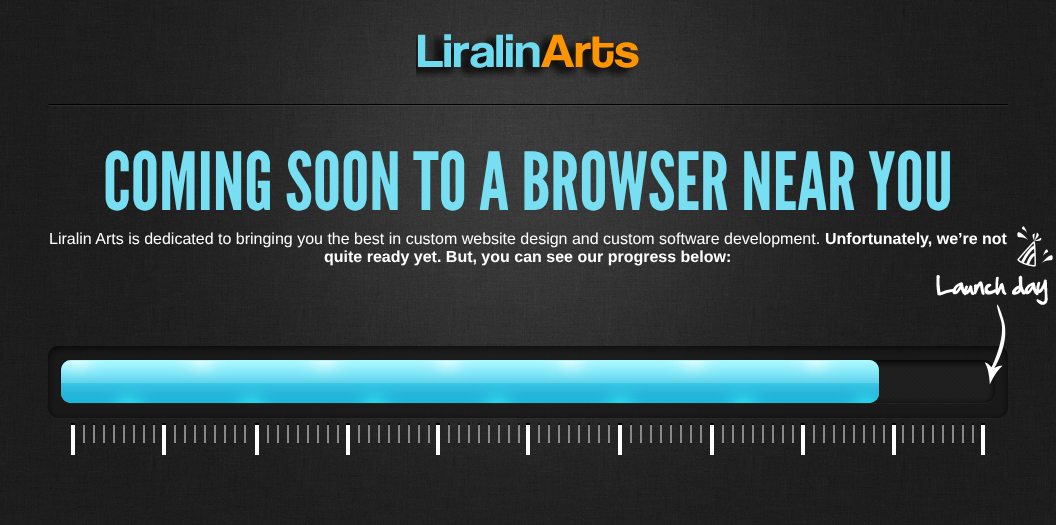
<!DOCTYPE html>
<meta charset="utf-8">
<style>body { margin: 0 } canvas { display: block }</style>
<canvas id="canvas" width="1056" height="525"></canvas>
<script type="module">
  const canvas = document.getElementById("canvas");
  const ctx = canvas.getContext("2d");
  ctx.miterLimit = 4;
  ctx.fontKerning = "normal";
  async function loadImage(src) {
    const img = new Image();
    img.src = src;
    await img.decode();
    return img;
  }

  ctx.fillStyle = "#ffffff";
  ctx.fillRect(0, 0, 1056, 525);
  ctx.drawImage(await loadImage("img1.png"), 0, 0, 1056, 525);
  ctx.drawImage(await loadImage("img2.png"), 48, 0, 960, 525);
  ctx.drawImage(await loadImage("img3.png"), 416, 34, 223, 44);
  ctx.drawImage(await loadImage("img4.png"), 48, 104, 960, 2);
  ctx.font = "80px League Gothic";
  ctx.fillStyle = "#77dff1";
  ctx.fillText("COMING SOON TO A BROWSER NEAR YOU", 103, 210);
  ctx.drawImage(await loadImage("img5.png"), 48, 346, 960, 109);
  ctx.fillStyle = "#72dbf1";
  ctx.beginPath();
  ctx.roundRect(61, 360, 818, 43, 10);
  ctx.fill();
  ctx.drawImage(await loadImage("img6.png"), 61, 360, 818, 43);
  ctx.font = "bold 16px Liberation Sans";
  ctx.fillStyle = "#ffffff";
  ctx.fillText("Unfortunately, we’re not", 825, 244);
  ctx.drawImage(await loadImage("img7.png"), 936, 226, 117, 159);
  ctx.font = "16px Liberation Sans";
  ctx.fillText("Liralin Arts is dedicated to bringing you the best in custom website design and custom software development.", 49, 244);
  ctx.font = "bold 16px Liberation Sans";
  ctx.fillText("quite ready yet. But, you can see our progress below:", 324, 262);
</script>
